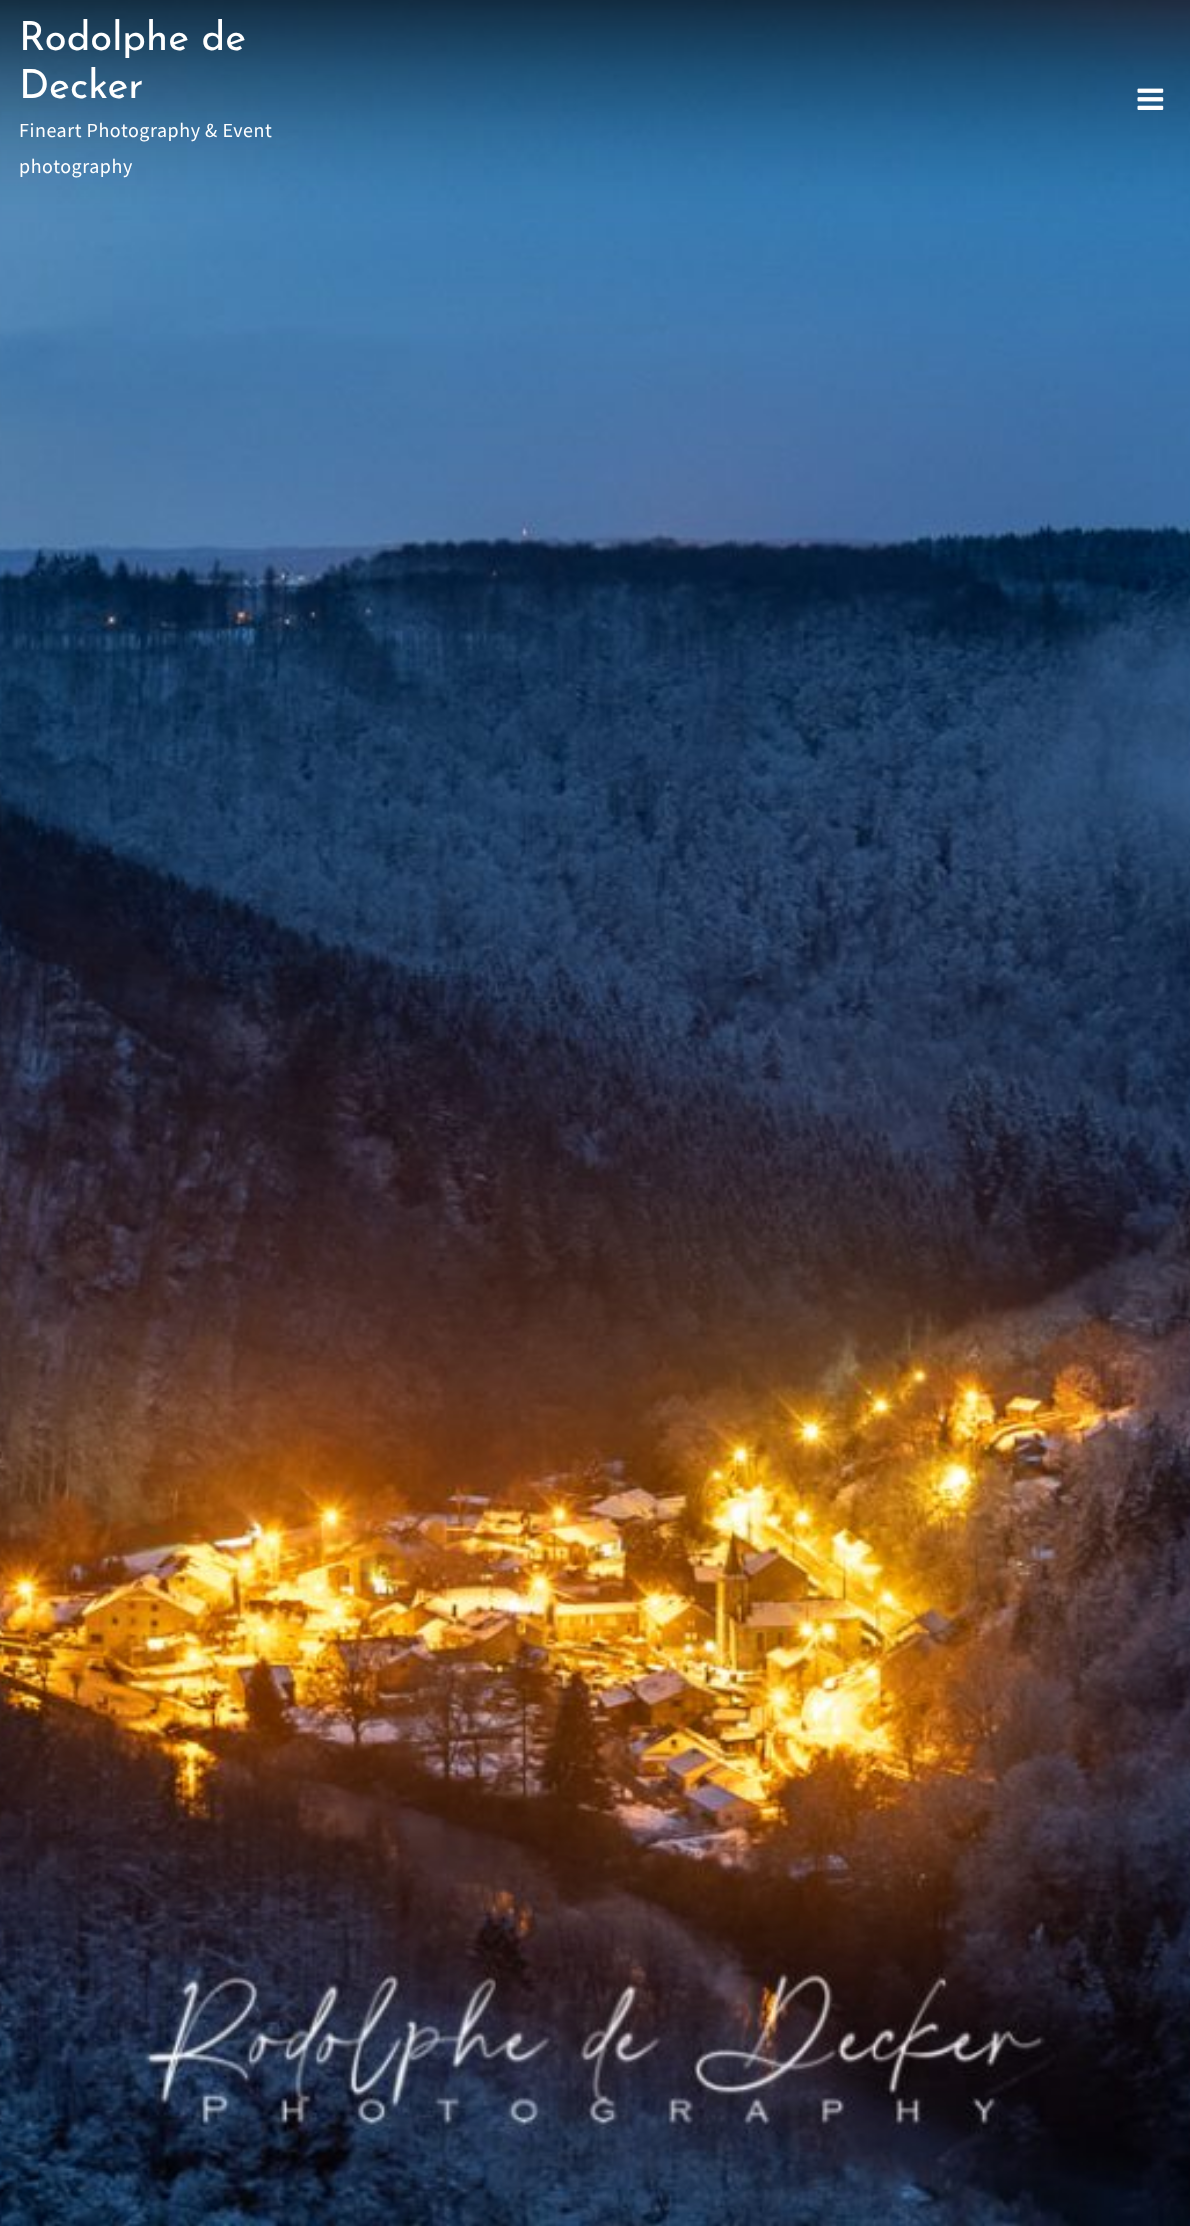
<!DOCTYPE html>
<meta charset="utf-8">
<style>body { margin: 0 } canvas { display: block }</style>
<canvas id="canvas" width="1190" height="2226"></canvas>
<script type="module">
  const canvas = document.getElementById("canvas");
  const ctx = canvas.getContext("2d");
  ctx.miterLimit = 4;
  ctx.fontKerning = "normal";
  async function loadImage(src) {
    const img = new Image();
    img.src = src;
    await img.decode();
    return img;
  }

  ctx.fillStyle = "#ffffff";
  ctx.fillRect(0, 0, 1190, 2226);
  ctx.drawImage(await loadImage("img1.png"), 0, 0, 1190, 2226);
  ctx.font = "100 40px Josefin Sans";
  ctx.fillText("Rodolphe de", 19, 50);
  ctx.fillText("Decker", 19, 98);
  ctx.letterSpacing = "0.55px";
  ctx.font = "20px Source Sans Pro";
  ctx.fillText("Fineart Photography & Event", 19, 137);
  ctx.fillText("photography", 19, 173);
  ctx.drawImage(await loadImage("img2.png"), 1137, 88, 27, 22);
</script>
